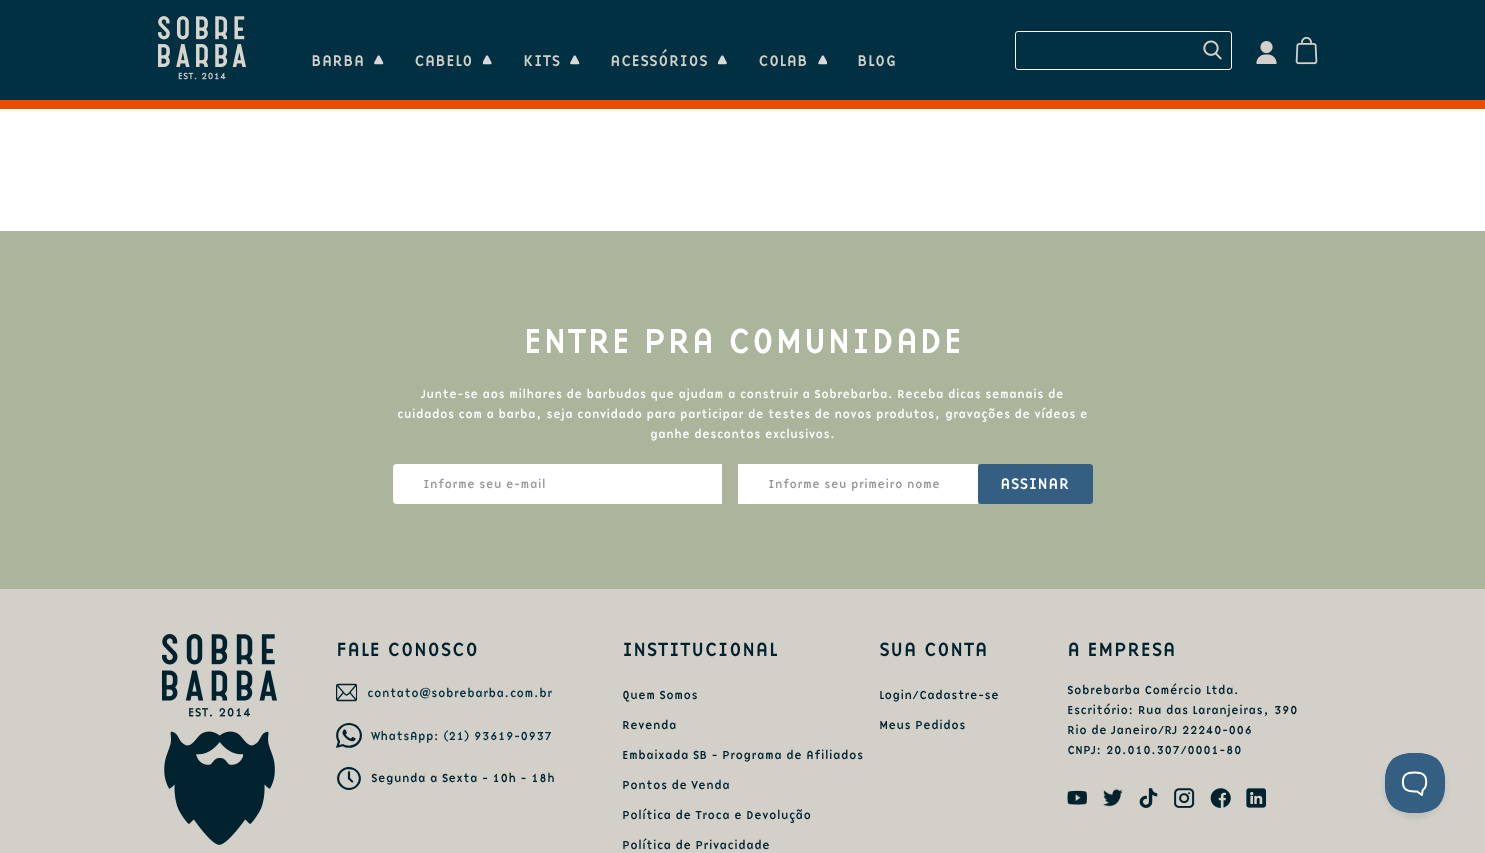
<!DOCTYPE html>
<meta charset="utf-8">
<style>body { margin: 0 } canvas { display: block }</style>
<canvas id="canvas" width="1485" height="853"></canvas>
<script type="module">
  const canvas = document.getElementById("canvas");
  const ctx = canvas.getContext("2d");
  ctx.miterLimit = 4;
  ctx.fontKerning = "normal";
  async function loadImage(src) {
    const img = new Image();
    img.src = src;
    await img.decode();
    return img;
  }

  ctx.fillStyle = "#ffffff";
  ctx.fillRect(0, 0, 1485, 853);
  ctx.fillStyle = "#e94e00";
  ctx.fillRect(0, 100, 1485, 9);
  ctx.fillStyle = "#003041";
  ctx.fillRect(0, 0, 1485, 100);
  ctx.drawImage(await loadImage("img1.png"), 158, 16, 88, 64);
  ctx.font = "100 16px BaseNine";
  ctx.fillStyle = "#d2d0c9";
  ctx.fillText("BARBA", 311, 66);
  ctx.drawImage(await loadImage("img2.png"), 374, 55, 10, 10);
  ctx.fillText("CABELO", 414, 66);
  ctx.drawImage(await loadImage("img3.png"), 483, 55, 9, 10);
  ctx.fillText("KITS", 523, 66);
  ctx.drawImage(await loadImage("img4.png"), 570, 55, 10, 10);
  ctx.fillText("ACESSÓRIOS", 610, 66);
  ctx.drawImage(await loadImage("img5.png"), 718, 55, 9, 10);
  ctx.fillText("COLAB", 758, 66);
  ctx.drawImage(await loadImage("img6.png"), 818, 55, 9, 10);
  ctx.fillText("BLOG", 857, 66);
  ctx.beginPath();
  ctx.roundRect(1015.5, 31.5, 216, 38, 2.5);
  ctx.strokeStyle = "#ffffff";
  ctx.stroke();
  ctx.drawImage(await loadImage("img7.png"), 1203, 40, 19, 20);
  ctx.drawImage(await loadImage("img8.png"), 1256, 41, 21, 23);
  ctx.drawImage(await loadImage("img9.png"), 1295, 36, 23, 29);
  ctx.fillStyle = "#aab59c";
  ctx.fillRect(0, 231, 1485, 358);
  ctx.font = "100 36px BaseNine";
  ctx.fillStyle = "#ffffff";
  ctx.fillText("ENTRE PRA COMUNIDADE", 523, 353);
  ctx.font = "100 12px BaseNine";
  ctx.fillText("Junte-se aos milhares de barbudos que ajudam a construir a Sobrebarba. Receba dicas semanais de", 421, 398);
  ctx.fillText("cuidados com a barba, seja convidado para participar de testes de novos produtos, gravações de vídeos e", 397, 418);
  ctx.fillText("ganhe descontos exclusivos.", 650, 438);
  ctx.beginPath();
  ctx.roundRect(393, 464, 329, 40, [4, 0, 0, 4]);
  ctx.fill();
  ctx.fillStyle = "#979899";
  ctx.fillText("Informe seu e-mail", 423, 488);
  ctx.fillStyle = "#ffffff";
  ctx.fillRect(738, 464, 240, 40);
  ctx.fillStyle = "#979899";
  ctx.fillText("Informe seu primeiro nome", 768, 488);
  ctx.fillStyle = "#345f83";
  ctx.beginPath();
  ctx.roundRect(978.5, 464.5, 114, 39, 2.5);
  ctx.fill();
  ctx.strokeStyle = "#345f83";
  ctx.stroke();
  ctx.font = "100 16px BaseNine";
  ctx.fillStyle = "#ffffff";
  ctx.fillText("ASSINAR", 1000, 489);
  ctx.fillStyle = "#d2d0c9";
  ctx.fillRect(0, 589, 1485, 264);
  ctx.drawImage(await loadImage("img10.png"), 162, 634, 115, 211);
  ctx.font = "100 20px BaseNine";
  ctx.fillStyle = "#00222e";
  ctx.fillText("FALE CONOSCO", 336, 656);
  ctx.drawImage(await loadImage("img11.png"), 336, 683, 22, 19);
  ctx.font = "100 12px BaseNine";
  ctx.fillStyle = "#003041";
  ctx.fillText("contato@sobrebarba.com.br", 367, 697);
  ctx.drawImage(await loadImage("img12.png"), 336, 723, 26, 25);
  ctx.fillText("WhatsApp: (21) 93619-0937", 371, 740);
  ctx.drawImage(await loadImage("img13.png"), 337, 767, 24, 23);
  ctx.fillStyle = "#00222e";
  ctx.fillText("Segunda a Sexta - 10h - 18h", 371, 782);
  ctx.font = "100 20px BaseNine";
  ctx.fillText("INSTITUCIONAL", 622, 656);
  ctx.font = "100 12px BaseNine";
  ctx.fillText("Quem Somos", 622, 699);
  ctx.fillText("Revenda", 622, 729);
  ctx.fillText("Embaixada SB - Programa de Afiliados", 622, 759);
  ctx.fillText("Pontos de Venda", 622, 789);
  ctx.fillText("Política de Troca e Devolução", 622, 819);
  ctx.fillText("Política de Privacidade", 622, 849);
  ctx.font = "100 20px BaseNine";
  ctx.fillText("SUA CONTA", 879, 656);
  ctx.font = "100 12px BaseNine";
  ctx.fillText("Login/Cadastre-se", 879, 699);
  ctx.fillText("Meus Pedidos", 879, 729);
  ctx.font = "100 20px BaseNine";
  ctx.fillText("A EMPRESA", 1067, 656);
  ctx.font = "100 12px BaseNine";
  ctx.fillText("Sobrebarba Comércio Ltda.", 1067, 694);
  ctx.fillText("Escritório: Rua das Laranjeiras, 390", 1067, 714);
  ctx.fillText("Rio de Janeiro/RJ 22240-006", 1067, 734);
  ctx.fillText("CNPJ: 20.010.307/0001-80", 1067, 754);
  ctx.drawImage(await loadImage("img14.png"), 1067, 790, 20, 15);
  ctx.drawImage(await loadImage("img15.png"), 1103, 789, 20, 18);
  ctx.drawImage(await loadImage("img16.png"), 1139, 788, 19, 20);
  ctx.drawImage(await loadImage("img17.png"), 1174, 788, 21, 20);
  ctx.drawImage(await loadImage("img18.png"), 1210, 788, 21, 20);
  ctx.drawImage(await loadImage("img19.png"), 1246, 788, 20, 20);
  ctx.fillStyle = "rgba(0, 0, 0, 0.1)";
  ctx.filter = "blur(3.5px)";
  ctx.beginPath();
  ctx.roundRect(1385, 757, 60, 60, 30);
  ctx.fill();
  ctx.filter = "none";
  ctx.drawImage(await loadImage("img20.png"), 1385, 753, 60, 60);
</script>
